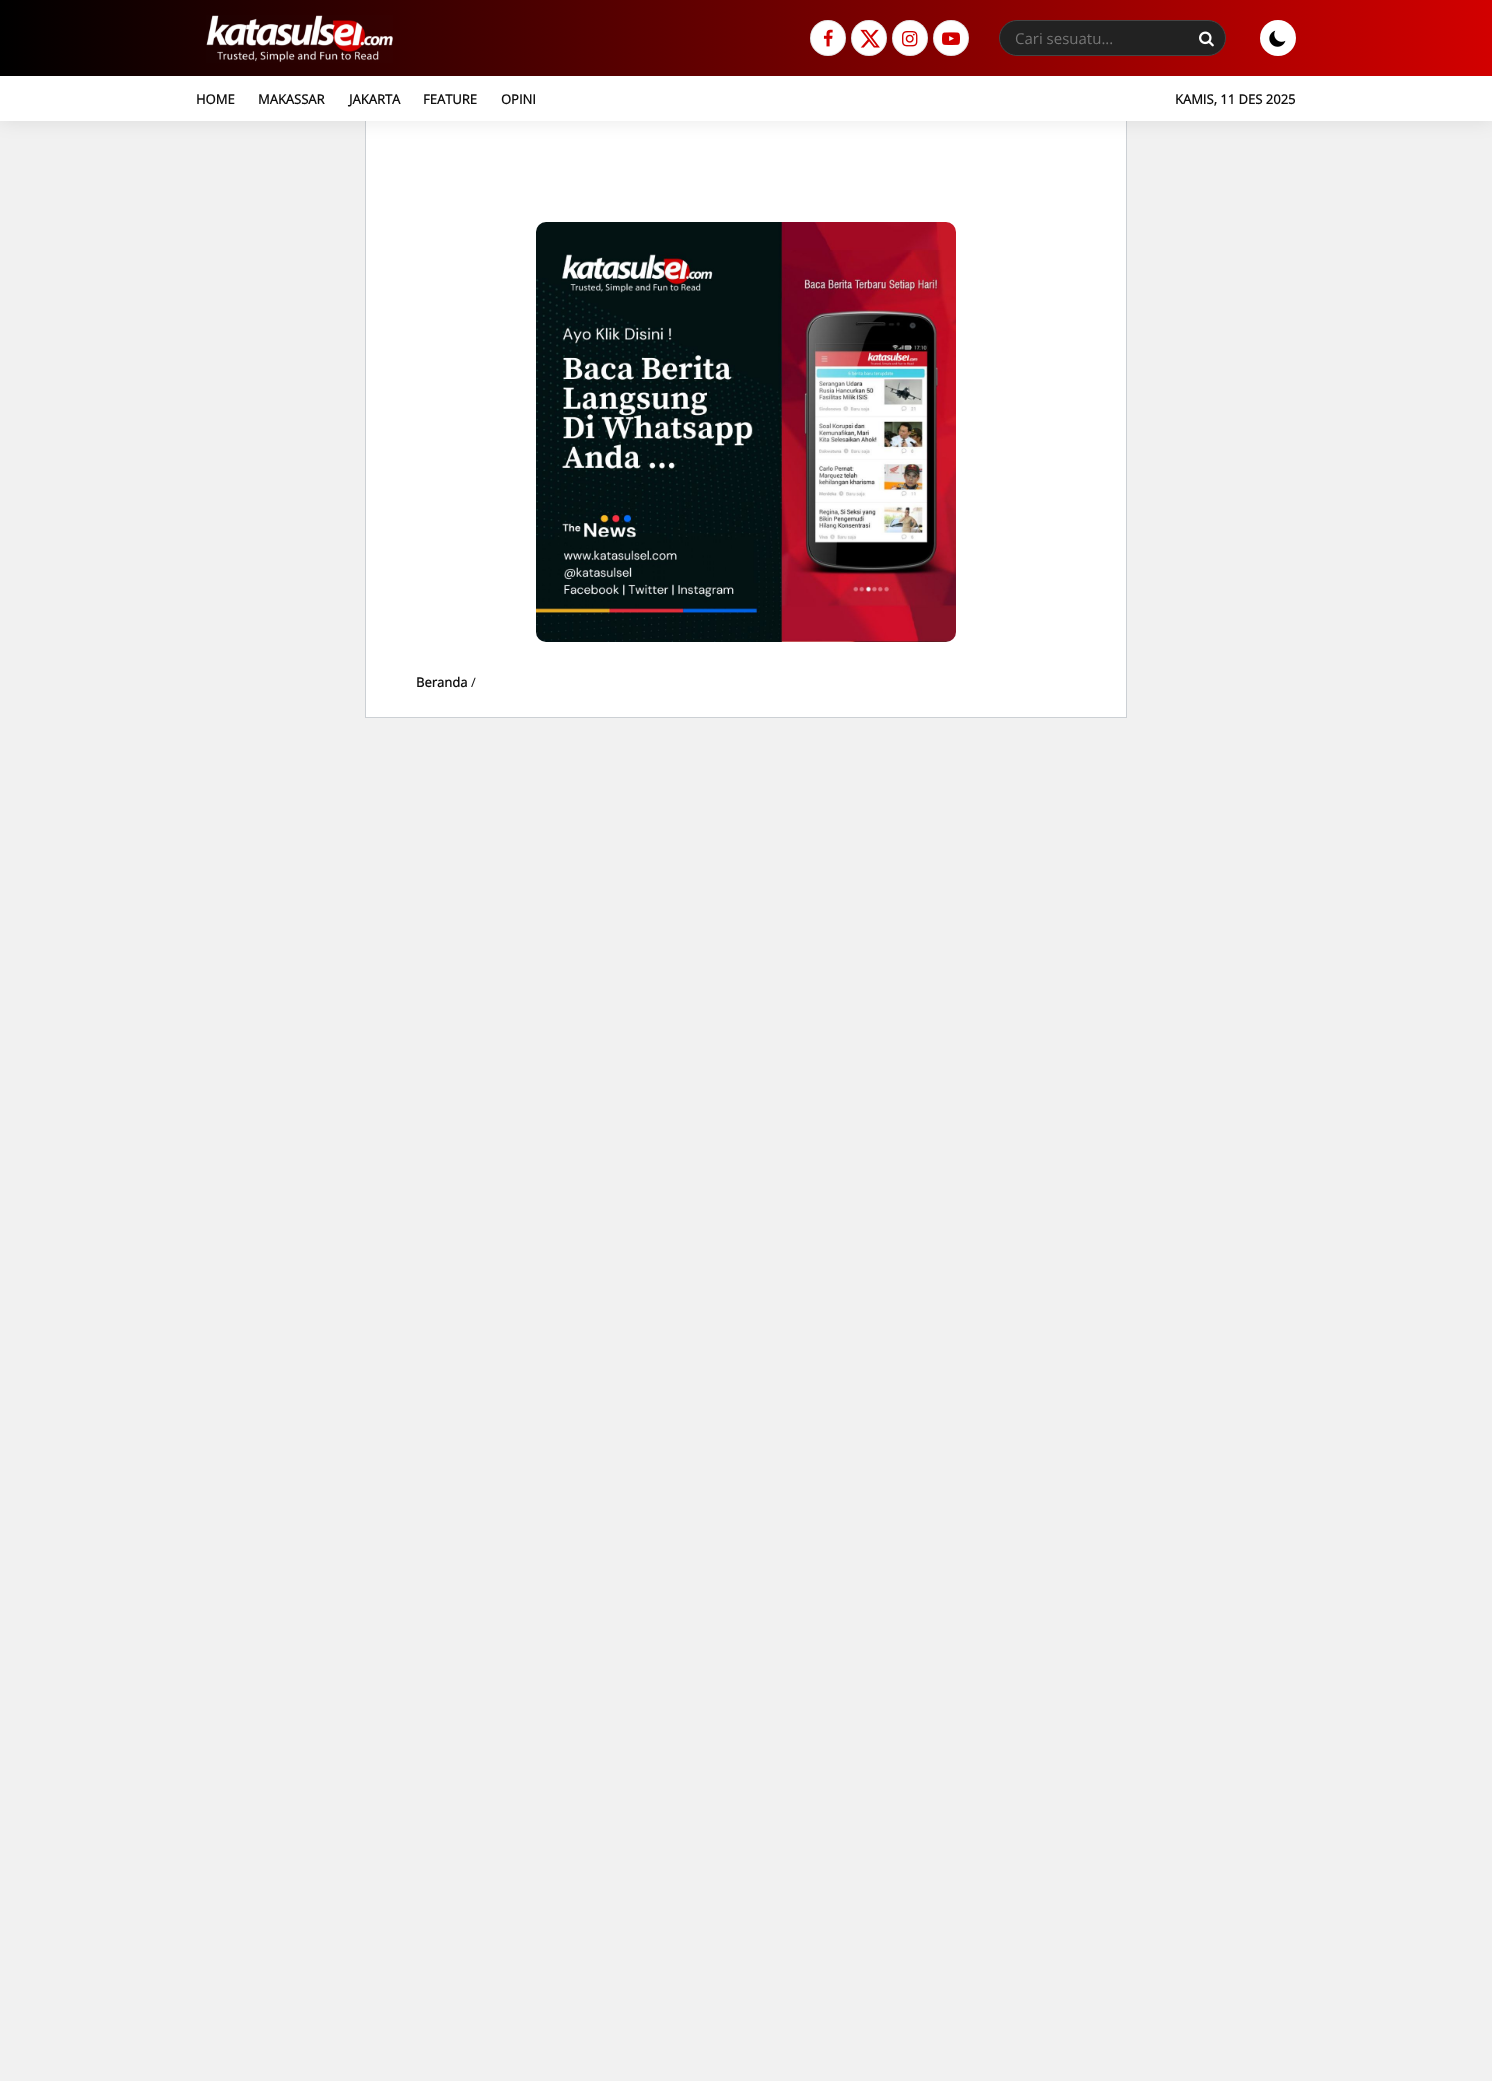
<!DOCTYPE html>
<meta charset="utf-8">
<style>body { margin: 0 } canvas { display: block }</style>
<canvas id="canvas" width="1492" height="2081"></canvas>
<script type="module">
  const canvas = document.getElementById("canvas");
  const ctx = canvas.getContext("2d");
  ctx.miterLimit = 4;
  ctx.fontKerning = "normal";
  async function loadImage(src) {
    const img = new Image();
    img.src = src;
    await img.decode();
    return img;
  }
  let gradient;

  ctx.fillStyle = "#f1f1f1";
  ctx.fillRect(0, 0, 1492, 2081);
  ctx.fillStyle = "#ffffff";
  ctx.fillRect(366, 121, 760, 596);
  ctx.strokeStyle = "#ccd0d4";
  ctx.strokeRect(365.5, 50.5, 761, 667);
  ctx.fillStyle = "rgba(0, 0, 0, 0.1)";
  ctx.filter = "blur(10px)";
  ctx.beginPath();
  ctx.rect(0, 0, 1492, 120);
  ctx.fill();
  ctx.filter = "none";
  gradient = ctx.createLinearGradient(0, 60, 1492, 60);
  gradient.addColorStop(0, "#000000");
  gradient.addColorStop(1, "#d20000");
  ctx.fillStyle = gradient;
  ctx.fillRect(0, 0, 1492, 76);
  ctx.drawImage(await loadImage("img1.png"), 206, 15, 187, 48);
  ctx.fillStyle = "#ffffff";
  ctx.beginPath();
  ctx.arc(828, 38, 18, 0, Math.PI * 2);
  ctx.fill();
  ctx.beginPath();
  ctx.arc(828, 38, 17.5, 0, Math.PI * 2);
  ctx.strokeStyle = "rgba(0, 0, 0, 0.1)";
  ctx.stroke();
  ctx.drawImage(await loadImage("img2.png"), 823, 29, 10, 18);
  ctx.beginPath();
  ctx.arc(869, 38, 18, 0, Math.PI * 2);
  ctx.fill();
  ctx.beginPath();
  ctx.arc(869, 38, 17.5, 0, Math.PI * 2);
  ctx.stroke();
  ctx.drawImage(await loadImage("img3.png"), 860, 29, 20, 19);
  ctx.beginPath();
  ctx.arc(910, 38, 18, 0, Math.PI * 2);
  ctx.fill();
  ctx.beginPath();
  ctx.arc(910, 38, 17.5, 0, Math.PI * 2);
  ctx.stroke();
  ctx.drawImage(await loadImage("img4.png"), 902, 31, 16, 16);
  ctx.beginPath();
  ctx.arc(951, 38, 18, 0, Math.PI * 2);
  ctx.fill();
  ctx.beginPath();
  ctx.arc(951, 38, 17.5, 0, Math.PI * 2);
  ctx.stroke();
  ctx.drawImage(await loadImage("img5.png"), 942, 32, 18, 13);
  ctx.fillStyle = "#222222";
  ctx.beginPath();
  ctx.roundRect(999.5, 20.5, 226, 35, 17.5);
  ctx.fill();
  ctx.strokeStyle = "#444444";
  ctx.stroke();
  ctx.fillRect(1015, 54, 1, 1);
  ctx.font = "15px Open Sans";
  ctx.fillStyle = "#757575";
  ctx.fillText("Cari sesuatu...", 1015, 44);
  ctx.drawImage(await loadImage("img6.png"), 1199, 31, 15, 16);
  ctx.fillStyle = "#ffffff";
  ctx.beginPath();
  ctx.arc(1278, 38, 18, 0, Math.PI * 2);
  ctx.fill();
  ctx.drawImage(await loadImage("img7.png"), 1269, 30, 17, 17);
  ctx.fillRect(0, 76, 1492, 45);
  ctx.font = "bold 13px Open Sans";
  ctx.fillStyle = "#111111";
  ctx.fillText("HOME", 196, 104);
  ctx.fillText("MAKASSAR", 258, 104);
  ctx.fillText("JAKARTA", 349, 104);
  ctx.fillText("FEATURE", 423, 104);
  ctx.fillText("OPINI", 501, 104);
  ctx.fillText("KAMIS, 11 DES 2025", 1175, 104);
  ctx.drawImage(await loadImage("img8.png"), 536, 222, 420, 420);
  ctx.fillText("Beranda", 416, 687);
  ctx.font = "13px Open Sans";
  ctx.fillText("/", 471, 687);
</script>
